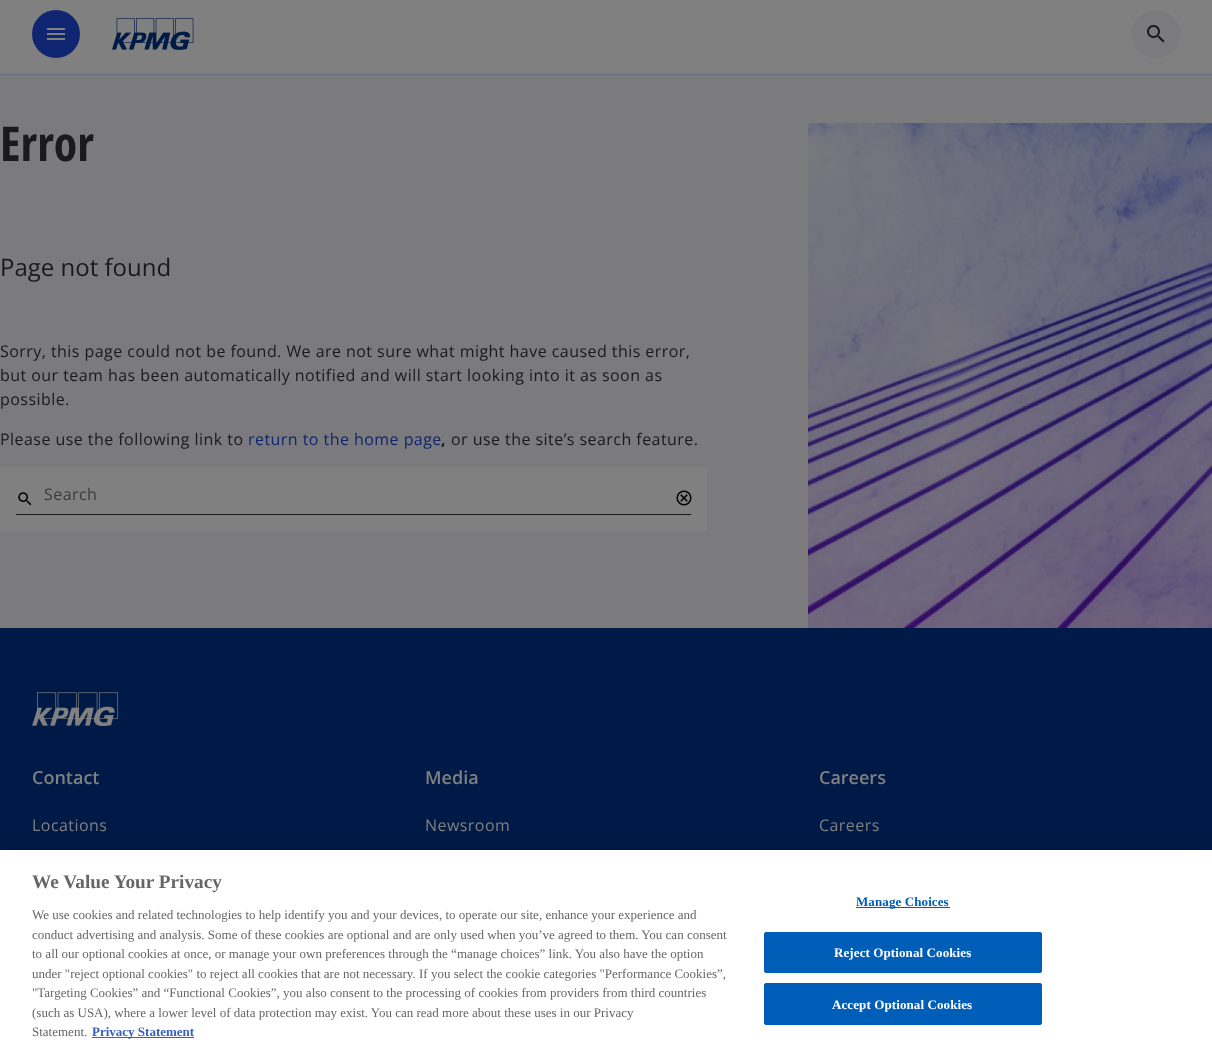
<!DOCTYPE html>
<meta charset="utf-8">
<style>body { margin: 0 } canvas { display: block }</style>
<canvas id="canvas" width="1212" height="1052"></canvas>
<script type="module">
  const canvas = document.getElementById("canvas");
  const ctx = canvas.getContext("2d");
  ctx.miterLimit = 4;
  ctx.fontKerning = "normal";
  async function loadImage(src) {
    const img = new Image();
    img.src = src;
    await img.decode();
    return img;
  }

  ctx.fillStyle = "#808080";
  ctx.fillRect(0, 0, 1212, 1052);
  ctx.fillStyle = "#696e7d";
  ctx.fillRect(0, 74, 1212, 1);
  ctx.fillStyle = "#0f2571";
  ctx.beginPath();
  ctx.arc(56, 34, 24, 0, Math.PI * 2);
  ctx.fill();
  ctx.drawImage(await loadImage("img1.png"), 47, 28, 18, 12);
  ctx.drawImage(await loadImage("img2.png"), 112, 18, 82, 32);
  ctx.fillStyle = "#7b7b7d";
  ctx.beginPath();
  ctx.arc(1156, 34, 24, 0, Math.PI * 2);
  ctx.fill();
  ctx.drawImage(await loadImage("img3.png"), 1147, 25, 18, 18);
  ctx.fillRect(0, 75, 1212, 553);
  ctx.font = "bold 48px Open Sans Condensed";
  ctx.fillStyle = "#1a1a1a";
  ctx.fillText("Error", 0, 161);
  ctx.font = "24px Open Sans";
  ctx.fillText("Page not found", 0, 276);
  ctx.letterSpacing = "0.45px";
  ctx.font = "16px Open Sans";
  ctx.fillText("Sorry, this page could not be found. We are not sure what might have caused this error,", 0, 357);
  ctx.fillText("but our team has been automatically notified and will start looking into it as soon as", 0, 381);
  ctx.fillText("possible.", 0, 405);
  ctx.fillText("Please use the following link to", 0, 445);
  ctx.fillStyle = "#0f2571";
  ctx.fillText("return to the home page", 248, 445);
  ctx.font = "bold 16px Open Sans";
  ctx.fillStyle = "#1a1a1a";
  ctx.fillText(",", 441, 445);
  ctx.font = "16px Open Sans";
  ctx.fillText("or use the site’s search feature.", 451, 445);
  ctx.fillStyle = "#808080";
  ctx.fillRect(0, 467, 707, 64);
  ctx.fillStyle = "#1a1a1a";
  ctx.fillRect(16, 514, 675, 1);
  ctx.drawImage(await loadImage("img4.png"), 18, 492, 14, 14);
  ctx.fillStyle = "#3b3b3b";
  ctx.fillText("Search", 44, 500);
  ctx.drawImage(await loadImage("img5.png"), 676, 490, 16, 16);
  ctx.drawImage(await loadImage("img6.png"), 808, 123, 404, 505);
  ctx.fillStyle = "#001a47";
  ctx.fillRect(0, 628, 1212, 222);
  ctx.drawImage(await loadImage("img7.png"), 32, 692, 87, 34);
  ctx.letterSpacing = "0px";
  ctx.font = "600 18px Open Sans";
  ctx.fillStyle = "#808080";
  ctx.fillText("Contact", 32, 784);
  ctx.letterSpacing = "0.45px";
  ctx.font = "16px Open Sans";
  ctx.fillText("Locations", 32, 831);
  ctx.letterSpacing = "0px";
  ctx.font = "600 18px Open Sans";
  ctx.fillText("Media", 425, 784);
  ctx.letterSpacing = "0.45px";
  ctx.font = "16px Open Sans";
  ctx.fillText("Newsroom", 425, 831);
  ctx.letterSpacing = "0px";
  ctx.font = "600 18px Open Sans";
  ctx.fillText("Careers", 819, 784);
  ctx.letterSpacing = "0.45px";
  ctx.font = "16px Open Sans";
  ctx.fillText("Careers", 819, 831);
  ctx.fillStyle = "rgba(0, 0, 0, 0.2)";
  ctx.filter = "blur(9px)";
  ctx.beginPath();
  ctx.rect(0, 850, 1212, 202);
  ctx.fill();
  ctx.filter = "none";
  ctx.fillStyle = "#ffffff";
  ctx.fillRect(0, 850, 1212, 202);
  ctx.letterSpacing = "0px";
  ctx.font = "bold 19.25px Liberation Serif";
  ctx.fillStyle = "#666666";
  ctx.fillText("We Value Your Privacy", 32, 888);
  ctx.font = "13px Liberation Serif";
  ctx.fillText("We use cookies and related technologies to help identify you and your devices, to operate our site, enhance your experience and", 32, 919);
  ctx.fillText("conduct advertising and analysis. Some of these cookies are optional and are only used when you’ve agreed to them. You can consent", 32, 939);
  ctx.fillText("to all our optional cookies at once, or manage your own preferences through the “manage choices” link. You also have the option", 32, 958);
  ctx.fillText("under \"reject optional cookies\" to reject all cookies that are not necessary. If you select the cookie categories \"Performance Cookies”,", 32, 978);
  ctx.fillText("\"Targeting Cookies” and “Functional Cookies”, you also consent to the processing of cookies from providers from third countries", 32, 997);
  ctx.fillText("(such as USA), where a lower level of data protection may exist. You can read more about these uses in our Privacy", 32, 1017);
  ctx.fillText("Statement.", 32, 1036);
  ctx.fillStyle = "#3860be";
  ctx.fillRect(92, 1037, 102, 1);
  ctx.font = "bold 13px Liberation Serif";
  ctx.fillText("Privacy Statement", 92, 1036);
  ctx.fillStyle = "#005eb8";
  ctx.fillRect(856, 907, 94, 1);
  ctx.letterSpacing = "0.1px";
  ctx.fillText("Manage Choices", 856, 906);
  ctx.beginPath();
  ctx.roundRect(764.5, 932.5, 277, 40, 1.5);
  ctx.fill();
  ctx.strokeStyle = "#005eb8";
  ctx.stroke();
  ctx.fillStyle = "#ffffff";
  ctx.fillText("Reject Optional Cookies", 834, 957);
  ctx.fillStyle = "#005eb8";
  ctx.beginPath();
  ctx.roundRect(764.5, 983.5, 277, 41, 1.5);
  ctx.fill();
  ctx.stroke();
  ctx.fillStyle = "#ffffff";
  ctx.fillText("Accept Optional Cookies", 832, 1009);
</script>
